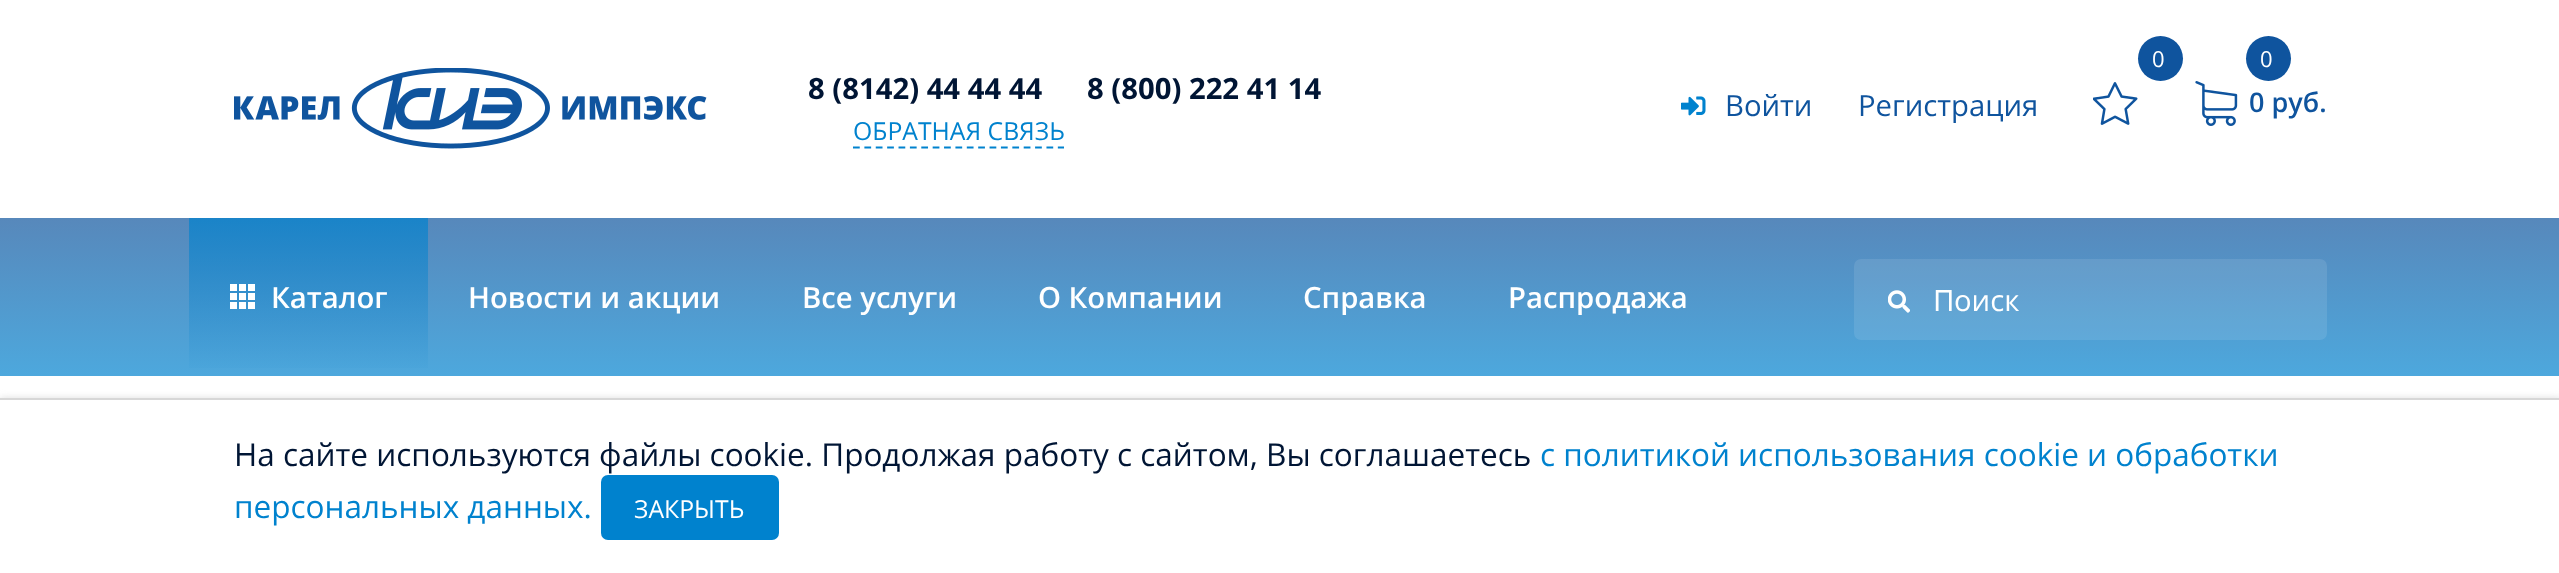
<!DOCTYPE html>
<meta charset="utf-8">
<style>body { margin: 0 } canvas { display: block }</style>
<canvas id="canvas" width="2559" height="573"></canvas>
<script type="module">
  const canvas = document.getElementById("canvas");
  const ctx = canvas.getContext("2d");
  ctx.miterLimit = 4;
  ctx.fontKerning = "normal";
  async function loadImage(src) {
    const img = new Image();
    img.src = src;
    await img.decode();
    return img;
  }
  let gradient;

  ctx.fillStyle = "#ffffff";
  ctx.fillRect(0, 0, 2559, 573);
  ctx.drawImage(await loadImage("img1.png"), 234, 68, 473, 81);
  ctx.font = "bold 29.25px Open Sans";
  ctx.fillStyle = "#001534";
  ctx.fillText("8 (8142) 44 44 44", 808, 99);
  ctx.fillText("8 (800) 222 41 14", 1087, 99);
  ctx.font = "24.75px Open Sans";
  ctx.fillStyle = "#0082ce";
  ctx.fillText("ОБРАТНАЯ СВЯЗЬ", 853, 140);
  ctx.beginPath();
  ctx.moveTo(853, 147.5);
  ctx.lineTo(1064, 147.5);
  ctx.strokeStyle = "#0082ce";
  ctx.lineWidth = 2.2;
  ctx.setLineDash([6.75, 4.63]);
  ctx.stroke();
  ctx.drawImage(await loadImage("img2.png"), 1681, 96, 25, 20);
  ctx.font = "29.25px Open Sans";
  ctx.fillStyle = "#0f549e";
  ctx.fillText("Войти", 1725, 116);
  ctx.fillText("Регистрация", 1858, 116);
  ctx.beginPath();
  ctx.arc(2160.5, 58.5, 22.5, 0, Math.PI * 2);
  ctx.fill();
  ctx.font = "22px Open Sans";
  ctx.fillStyle = "#ffffff";
  ctx.fillText("0", 2152, 67);
  ctx.drawImage(await loadImage("img3.png"), 2093, 82, 45, 43);
  ctx.fillStyle = "#0f549e";
  ctx.beginPath();
  ctx.arc(2268.5, 58.5, 22.5, 0, Math.PI * 2);
  ctx.fill();
  ctx.fillStyle = "#ffffff";
  ctx.fillText("0", 2260, 67);
  ctx.drawImage(await loadImage("img4.png"), 2195, 81, 43, 45);
  ctx.font = "600 27px Open Sans";
  ctx.fillStyle = "#0f549e";
  ctx.fillText("0 руб.", 2249, 112);
  gradient = ctx.createLinearGradient(0, 218, 0, 376);
  gradient.addColorStop(0, "#5788bb");
  gradient.addColorStop(1, "#4da8dd");
  ctx.fillStyle = gradient;
  ctx.fillRect(0, 218, 2559, 158);
  gradient = ctx.createLinearGradient(189, 218, 189, 376);
  gradient.addColorStop(0, "rgba(0, 130, 206, 0.7)");
  gradient.addColorStop(1, "rgba(0, 130, 206, 0)");
  ctx.fillStyle = gradient;
  ctx.fillRect(189, 218, 239, 150);
  ctx.fillStyle = "#ffffff";
  ctx.fillRect(239, 284, 7, 7);
  ctx.fillRect(230, 284, 7, 7);
  ctx.fillRect(248, 284, 7, 7);
  ctx.fillRect(239, 293, 7, 7);
  ctx.fillRect(230, 293, 7, 7);
  ctx.fillRect(248, 293, 7, 7);
  ctx.fillRect(239, 302, 7, 7);
  ctx.fillRect(230, 302, 7, 7);
  ctx.fillRect(248, 302, 7, 7);
  ctx.font = "600 29.25px Open Sans";
  ctx.fillText("Каталог", 271, 308);
  ctx.fillText("Новости и акции", 468, 308);
  ctx.fillText("Все услуги", 802, 308);
  ctx.fillText("О Компании", 1038, 308);
  ctx.fillText("Справка", 1303, 308);
  ctx.fillText("Распродажа", 1508, 308);
  ctx.drawImage(await loadImage("img5.png"), 1888, 290, 22, 23);
  ctx.fillStyle = "rgba(255, 255, 255, 0.1)";
  ctx.beginPath();
  ctx.roundRect(1854, 259, 473, 81, 7);
  ctx.fill();
  ctx.font = "29.25px Noto Sans";
  ctx.fillStyle = "#ffffff";
  ctx.fillText("П", 1933, 311);
  ctx.font = "29.25px Open Sans";
  ctx.fillText("оиск", 1954, 311);
  ctx.fillStyle = "#dddddd";
  ctx.filter = "blur(3.5px)";
  ctx.beginPath();
  ctx.rect(0, 398, 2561, 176);
  ctx.fill();
  ctx.filter = "none";
  ctx.fillStyle = "#ffffff";
  ctx.fillRect(0, 400, 2559, 173);
  ctx.fillStyle = "#d7d7d7";
  ctx.fillRect(0, 398, 2559, 2);
  ctx.font = "31.5px Open Sans";
  ctx.fillStyle = "#001534";
  ctx.fillText("На сайте используются файлы cookie. Продолжая работу с сайтом, Вы соглашаетесь", 234, 466);
  ctx.fillStyle = "#0082ce";
  ctx.fillText("с политикой использования cookie и обработки", 1540, 466);
  ctx.fillText("персональных данных.", 234, 518);
  ctx.beginPath();
  ctx.roundRect(601, 475, 178, 65, 7);
  ctx.fill();
  ctx.font = "24.75px Open Sans";
  ctx.fillStyle = "#ffffff";
  ctx.fillText("ЗАКРЫТЬ", 634, 518);
</script>
